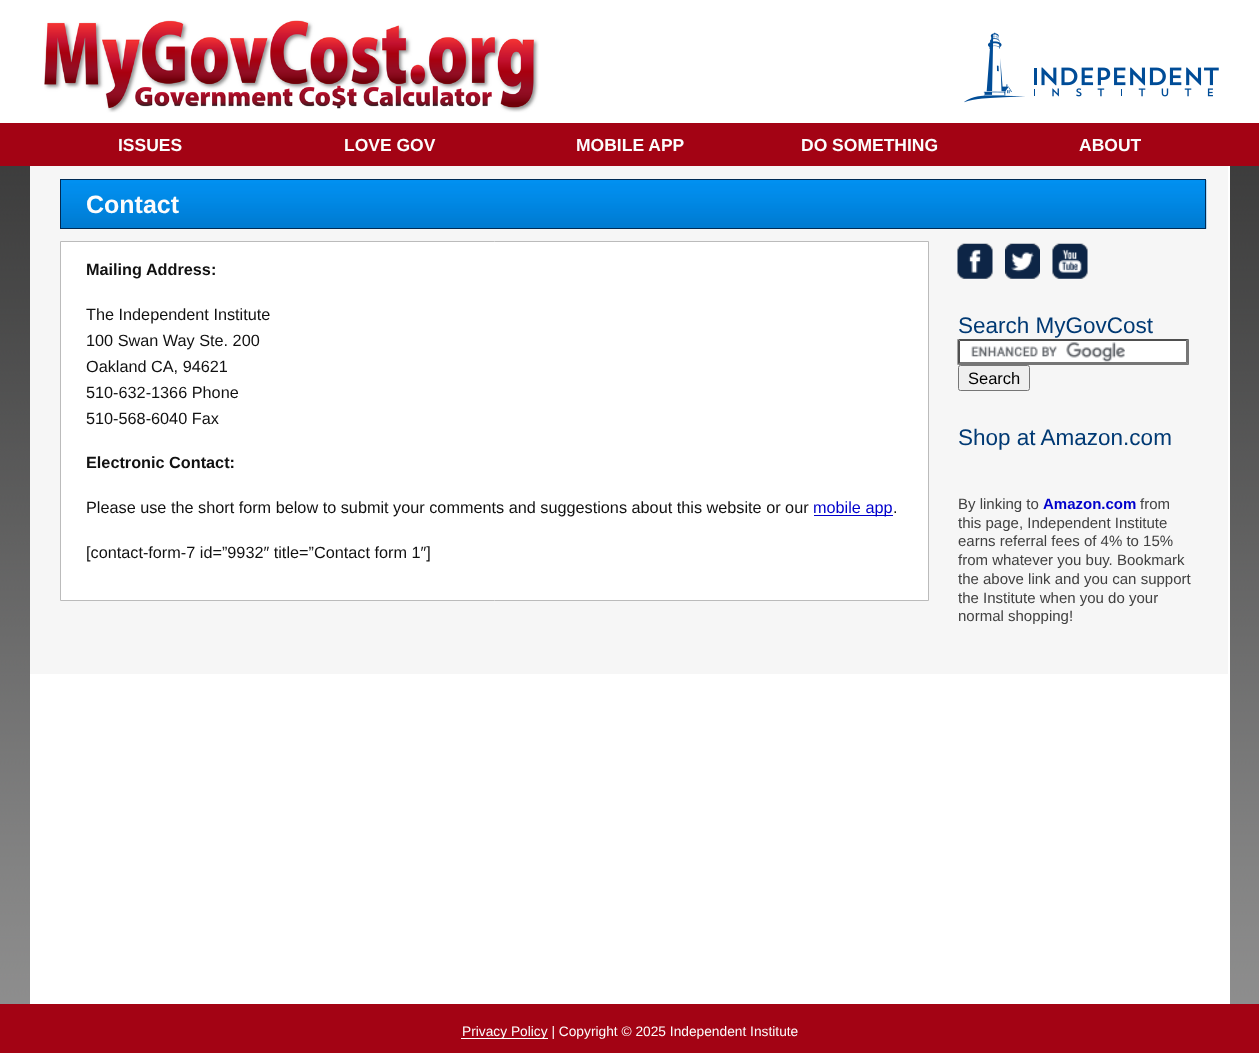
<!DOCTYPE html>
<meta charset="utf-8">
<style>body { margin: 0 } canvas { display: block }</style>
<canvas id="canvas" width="1259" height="1053"></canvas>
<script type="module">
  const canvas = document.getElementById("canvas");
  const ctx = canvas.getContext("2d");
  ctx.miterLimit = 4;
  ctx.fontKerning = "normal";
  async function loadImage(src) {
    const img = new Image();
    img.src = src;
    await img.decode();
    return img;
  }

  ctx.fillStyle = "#ffffff";
  ctx.fillRect(0, 0, 1259, 1053);
  ctx.drawImage(await loadImage("img1.png"), 0, 166, 1259, 838);
  ctx.drawImage(await loadImage("img2.png"), 44, 20, 495, 93);
  ctx.drawImage(await loadImage("img3.png"), 964, 32, 255, 71);
  ctx.fillStyle = "#a30314";
  ctx.fillRect(0, 123, 1259, 43);
  ctx.font = "bold 17.5px Liberation Sans";
  ctx.fillStyle = "#fcfcfc";
  ctx.fillText("ISSUES", 118, 151);
  ctx.fillText("LOVE GOV", 344, 151);
  ctx.fillText("MOBILE APP", 576, 151);
  ctx.fillText("DO SOMETHING", 801, 151);
  ctx.fillText("ABOUT", 1079, 151);
  ctx.fillStyle = "#ffffff";
  ctx.fillRect(30, 166, 1200, 838);
  ctx.fillStyle = "#f6f6f6";
  ctx.fillRect(30, 166, 1198, 508);
  ctx.drawImage(await loadImage("img4.png"), 61, 180, 1146, 49);
  ctx.strokeStyle = "#002a54";
  ctx.strokeRect(60.5, 179.5, 1145, 49);
  ctx.font = "bold 25px Liberation Sans";
  ctx.fillStyle = "#fcfcfc";
  ctx.fillText("Contact", 86, 213);
  ctx.fillStyle = "#ffffff";
  ctx.beginPath();
  ctx.rect(60.5, 241.5, 868, 359);
  ctx.fill();
  ctx.strokeStyle = "#bbbbbb";
  ctx.stroke();
  ctx.font = "bold 16.25px Liberation Sans";
  ctx.fillStyle = "#111111";
  ctx.fillText("Mailing Address:", 86, 275);
  ctx.font = "16.25px Liberation Sans";
  ctx.fillText("The Independent Institute", 86, 320);
  ctx.fillText("100 Swan Way Ste. 200", 86, 346);
  ctx.fillText("Oakland CA, 94621", 86, 372);
  ctx.fillText("510-632-1366 Phone", 86, 398);
  ctx.fillText("510-568-6040 Fax", 86, 424);
  ctx.font = "bold 16.25px Liberation Sans";
  ctx.fillText("Electronic Contact:", 86, 468);
  ctx.font = "16.25px Liberation Sans";
  ctx.fillText("Please use the short form below to submit your comments and suggestions about this website or our", 86, 513);
  ctx.fillStyle = "#0000cc";
  ctx.fillRect(814, 515, 79, 1);
  ctx.fillText("mobile app", 813, 513);
  ctx.fillStyle = "#111111";
  ctx.fillText(".", 893, 513);
  ctx.fillText("[contact-form-7 id=”9932″ title=”Contact form 1″]", 86, 558);
  ctx.drawImage(await loadImage("img5.png"), 957, 243, 36, 36);
  ctx.drawImage(await loadImage("img6.png"), 1005, 243, 35, 36);
  ctx.drawImage(await loadImage("img7.png"), 1052, 243, 36, 36);
  ctx.font = "22.5px Liberation Sans";
  ctx.fillStyle = "#003973";
  ctx.fillText("Search MyGovCost", 958, 333);
  ctx.fillStyle = "#ffffff";
  ctx.fillRect(958, 339, 231, 26);
  ctx.drawImage(await loadImage("img8.png"), 971, 342, 154, 20);
  ctx.fillStyle = "#4f4f4f";
  ctx.beginPath();
  ctx.moveTo(958, 339);
  ctx.lineTo(1189, 339);
  ctx.lineTo(1186, 341);
  ctx.lineTo(960, 341);
  ctx.closePath();
  ctx.fill();
  ctx.fillStyle = "#767676";
  ctx.beginPath();
  ctx.moveTo(1189, 339);
  ctx.lineTo(1189, 365);
  ctx.lineTo(1186, 362.5);
  ctx.lineTo(1186, 341);
  ctx.closePath();
  ctx.fill();
  ctx.beginPath();
  ctx.moveTo(1189, 365);
  ctx.lineTo(958, 365);
  ctx.lineTo(960, 362);
  ctx.lineTo(1186, 362);
  ctx.closePath();
  ctx.fill();
  ctx.fillStyle = "#4f4f4f";
  ctx.beginPath();
  ctx.moveTo(957.5, 365);
  ctx.lineTo(957.5, 339);
  ctx.lineTo(960, 341);
  ctx.lineTo(960, 362.5);
  ctx.closePath();
  ctx.fill();
  ctx.fillStyle = "#efefef";
  ctx.beginPath();
  ctx.roundRect(958.5, 365.5, 71, 25, 2);
  ctx.fill();
  ctx.strokeStyle = "#767676";
  ctx.stroke();
  ctx.font = "16.5px Liberation Sans";
  ctx.fillStyle = "#000000";
  ctx.fillText("Search", 968, 384);
  ctx.font = "22.5px Liberation Sans";
  ctx.fillStyle = "#003973";
  ctx.fillText("Shop at Amazon.com", 958, 445);
  ctx.font = "15px Liberation Sans";
  ctx.fillStyle = "#414141";
  ctx.fillText("By linking to", 958, 509);
  ctx.font = "bold 15px Liberation Sans";
  ctx.fillStyle = "#0000cc";
  ctx.fillText("Amazon.com", 1043, 509);
  ctx.font = "15px Liberation Sans";
  ctx.fillStyle = "#414141";
  ctx.fillText("from", 1140, 509);
  ctx.fillText("this page, Independent Institute", 958, 528);
  ctx.fillText("earns referral fees of 4% to 15%", 958, 546);
  ctx.fillText("from whatever you buy. Bookmark", 958, 565);
  ctx.fillText("the above link and you can support", 958, 584);
  ctx.fillText("the Institute when you do your", 958, 603);
  ctx.fillText("normal shopping!", 958, 621);
  ctx.fillStyle = "#a30314";
  ctx.fillRect(0, 1004, 1259, 49);
  ctx.fillStyle = "#ffffff";
  ctx.fillRect(461, 1038, 87, 1);
  ctx.font = "13.75px Liberation Sans";
  ctx.fillStyle = "#fcfcfc";
  ctx.fillText("Privacy Policy | Copyright © 2025 Independent Institute", 462, 1036);
</script>
